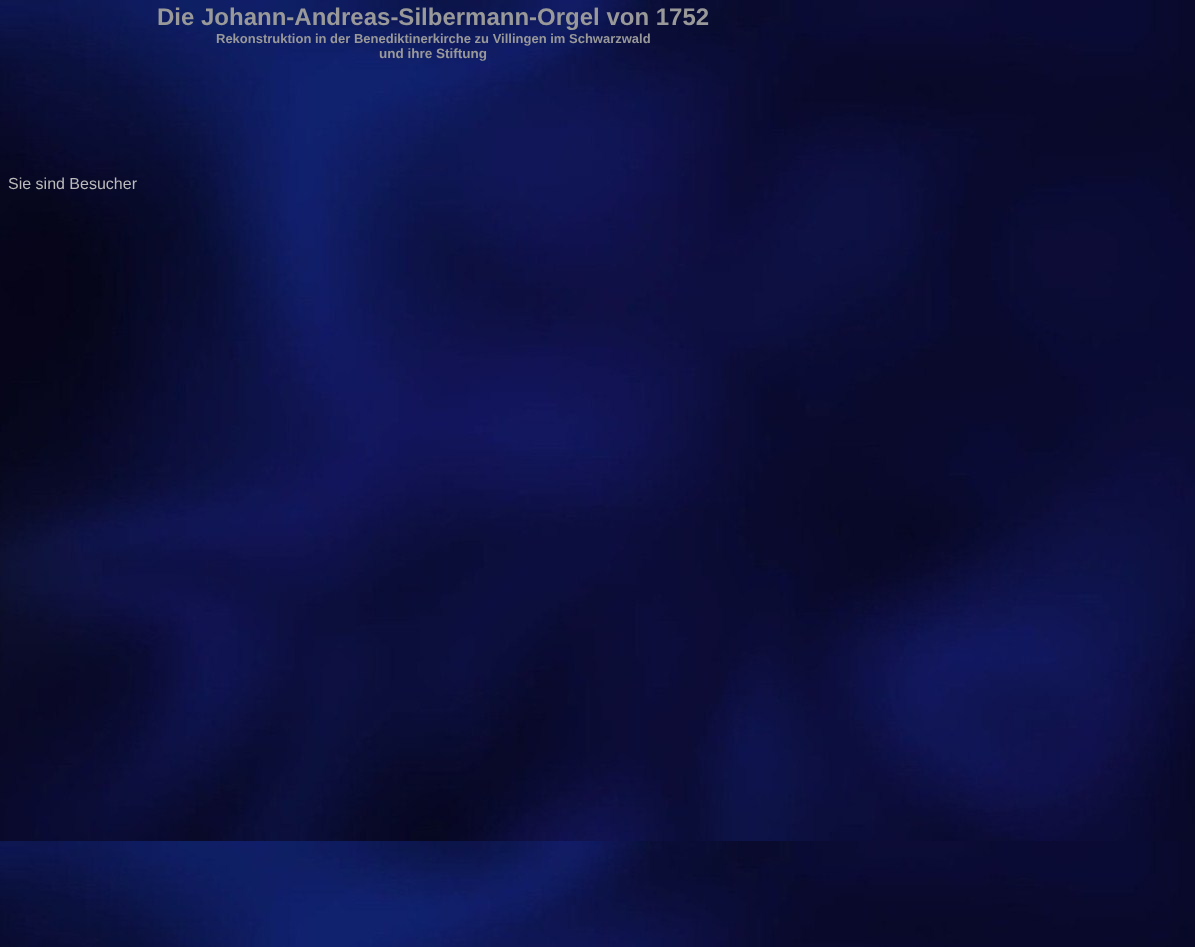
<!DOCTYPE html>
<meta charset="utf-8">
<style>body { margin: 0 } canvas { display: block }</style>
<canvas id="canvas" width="1195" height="947"></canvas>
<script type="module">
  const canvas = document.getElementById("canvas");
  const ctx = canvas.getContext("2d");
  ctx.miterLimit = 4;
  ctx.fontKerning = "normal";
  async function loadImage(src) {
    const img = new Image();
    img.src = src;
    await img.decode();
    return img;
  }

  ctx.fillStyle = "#ffffff";
  ctx.fillRect(0, 0, 1195, 947);
  ctx.drawImage(await loadImage("img1.png"), 0, 0, 1195, 947);
  ctx.font = "bold 24px Liberation Sans";
  ctx.fillStyle = "#999999";
  ctx.fillText("Die Johann-Andreas-Silbermann-Orgel von 1752", 157, 25);
  ctx.font = "bold 13px Liberation Sans";
  ctx.fillText("Rekonstruktion in der Benediktinerkirche zu Villingen im Schwarzwald", 216, 43);
  ctx.font = "bold 13.5px Liberation Sans";
  ctx.fillText("und ihre Stiftung", 379, 58);
  ctx.font = "16px Liberation Sans";
  ctx.fillStyle = "#bbbbbb";
  ctx.fillText("Sie sind Besucher", 8, 189);
</script>
